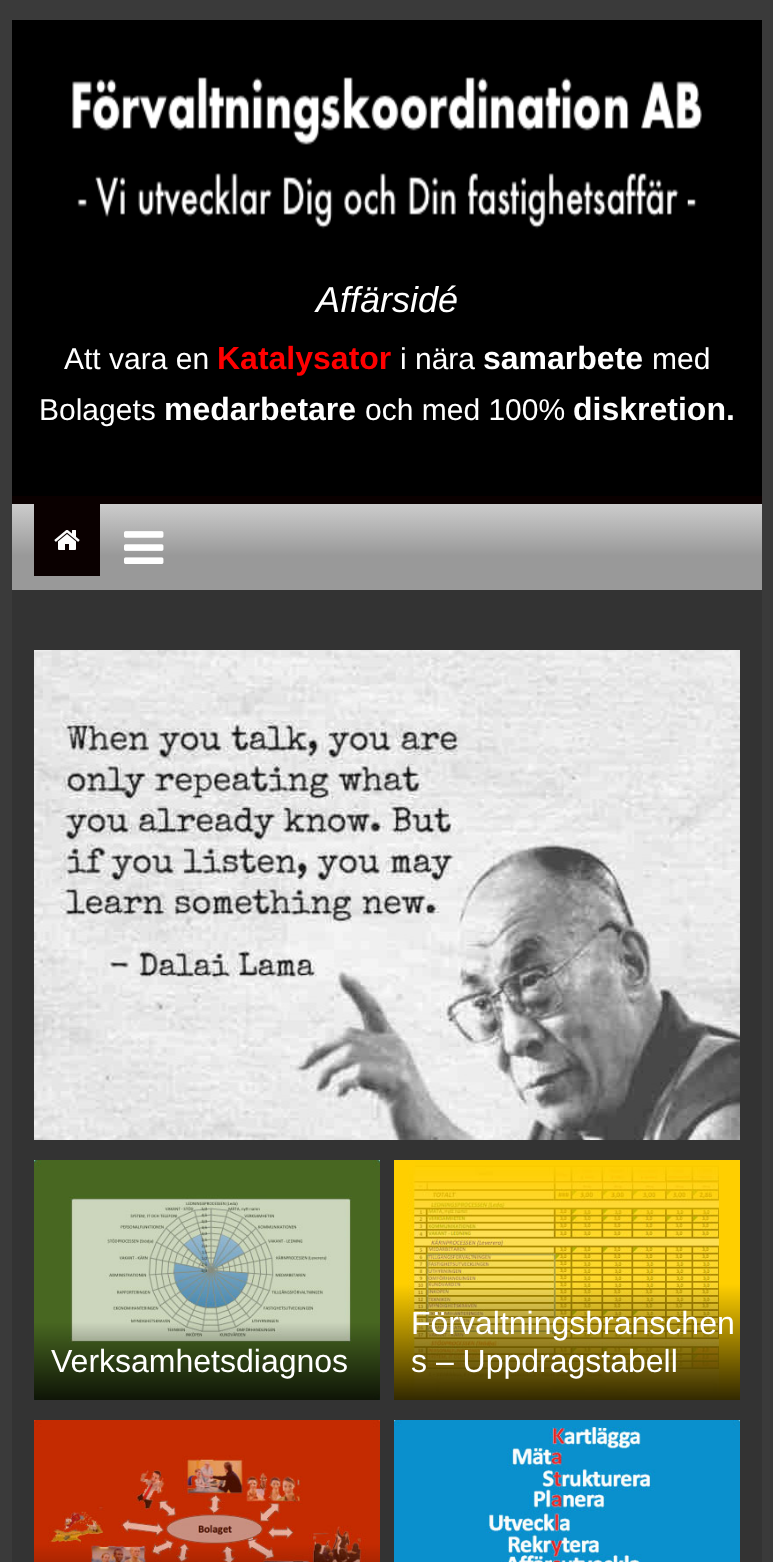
<!DOCTYPE html>
<meta charset="utf-8">
<style>body { margin: 0 } canvas { display: block }</style>
<canvas id="canvas" width="773" height="1562"></canvas>
<script type="module">
  const canvas = document.getElementById("canvas");
  const ctx = canvas.getContext("2d");
  ctx.miterLimit = 4;
  ctx.fontKerning = "normal";
  async function loadImage(src) {
    const img = new Image();
    img.src = src;
    await img.decode();
    return img;
  }
  let gradient;

  ctx.fillStyle = "#3a3a3a";
  ctx.fillRect(0, 0, 773, 1562);
  ctx.fillStyle = "#000000";
  ctx.fillRect(12, 20, 750, 476);
  ctx.drawImage(await loadImage("img1.png"), 72, 77, 630, 152);
  ctx.font = "italic 36px Liberation Sans";
  ctx.fillStyle = "#ffffff";
  ctx.fillText("Affärsidé", 316, 312);
  ctx.font = "30px Liberation Sans";
  ctx.fillText("Att vara en", 64, 369);
  ctx.font = "bold 32px Liberation Sans";
  ctx.fillStyle = "#ff0000";
  ctx.fillText("Katalysator", 217, 369);
  ctx.font = "30px Liberation Sans";
  ctx.fillStyle = "#ffffff";
  ctx.fillText("i nära", 400, 369);
  ctx.font = "bold 32px Liberation Sans";
  ctx.fillText("samarbete", 483, 369);
  ctx.font = "30px Liberation Sans";
  ctx.fillText("med", 652, 369);
  ctx.fillText("Bolagets", 39, 420);
  ctx.font = "bold 32px Liberation Sans";
  ctx.fillText("medarbetare", 164, 420);
  ctx.font = "30px Liberation Sans";
  ctx.fillText("och med 100%", 365, 420);
  ctx.font = "bold 32px Liberation Sans";
  ctx.fillText("diskretion.", 573, 420);
  gradient = ctx.createLinearGradient(387, 504, 387, 590);
  gradient.addColorStop(0, "#cccccc");
  gradient.addColorStop(0.6, "#999999");
  gradient.addColorStop(1, "#999999");
  ctx.fillStyle = gradient;
  ctx.fillRect(12, 504, 750, 86);
  ctx.fillStyle = "#0a0000";
  ctx.fillRect(12, 496, 750, 8);
  ctx.fillRect(34, 504, 66, 72);
  ctx.drawImage(await loadImage("img2.png"), 54, 530, 26, 20);
  ctx.drawImage(await loadImage("img3.png"), 124, 531, 40, 33);
  ctx.fillStyle = "#333333";
  ctx.fillRect(12, 590, 750, 972);
  ctx.drawImage(await loadImage("img4.png"), 34, 650, 706, 490);
  ctx.drawImage(await loadImage("img5.png"), 34, 1160, 346, 240);
  ctx.font = "32px Liberation Sans";
  ctx.fillStyle = "#ffffff";
  ctx.fillText("Verksamhetsdiagnos", 51, 1372);
  ctx.drawImage(await loadImage("img6.png"), 394, 1160, 346, 240);
  ctx.fillText("Förvaltningsbranschen", 411, 1334);
  ctx.fillText("s – Uppdragstabell", 411, 1372);
  ctx.drawImage(await loadImage("img7.png"), 34, 1420, 346, 142);
  ctx.drawImage(await loadImage("img8.png"), 394, 1420, 346, 142);
</script>
